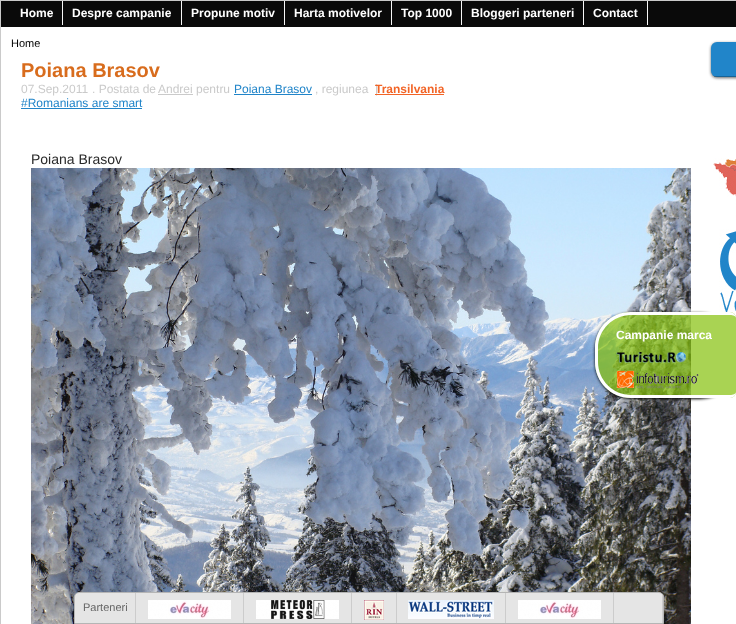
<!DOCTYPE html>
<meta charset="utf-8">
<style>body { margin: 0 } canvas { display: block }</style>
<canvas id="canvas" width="736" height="624"></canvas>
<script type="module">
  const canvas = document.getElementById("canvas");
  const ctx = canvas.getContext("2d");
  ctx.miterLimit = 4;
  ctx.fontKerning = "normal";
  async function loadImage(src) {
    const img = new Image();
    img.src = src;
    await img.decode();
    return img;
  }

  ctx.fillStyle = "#ffffff";
  ctx.fillRect(0, 0, 736, 624);
  ctx.strokeStyle = "#cacaca";
  ctx.strokeRect(0.5, 0.5, 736, 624);
  ctx.fillStyle = "#0a0a0a";
  ctx.fillRect(1, 1, 735, 26);
  ctx.fillStyle = "#f7f7f7";
  ctx.fillRect(62, 1, 1, 24);
  ctx.font = "bold 12px Liberation Sans";
  ctx.fillStyle = "#ffffff";
  ctx.fillText("Home", 20, 17);
  ctx.fillStyle = "#f7f7f7";
  ctx.fillRect(181, 1, 1, 24);
  ctx.fillStyle = "#ffffff";
  ctx.fillText("Despre campanie", 72, 17);
  ctx.fillStyle = "#f7f7f7";
  ctx.fillRect(284, 1, 1, 24);
  ctx.fillStyle = "#ffffff";
  ctx.fillText("Propune motiv", 191, 17);
  ctx.fillStyle = "#f7f7f7";
  ctx.fillRect(391, 1, 1, 24);
  ctx.fillStyle = "#ffffff";
  ctx.fillText("Harta motivelor", 294, 17);
  ctx.fillStyle = "#f7f7f7";
  ctx.fillRect(461, 1, 1, 24);
  ctx.fillStyle = "#ffffff";
  ctx.fillText("Top 1000", 401, 17);
  ctx.fillStyle = "#f7f7f7";
  ctx.fillRect(583, 1, 1, 24);
  ctx.fillStyle = "#ffffff";
  ctx.fillText("Bloggeri parteneri", 471, 17);
  ctx.fillStyle = "#f7f7f7";
  ctx.fillRect(647, 1, 1, 24);
  ctx.fillStyle = "#ffffff";
  ctx.fillText("Contact", 593, 17);
  ctx.font = "11px Liberation Sans";
  ctx.fillStyle = "#000000";
  ctx.fillText("Home", 11, 47);
  ctx.font = "bold 20px Liberation Sans";
  ctx.fillStyle = "#d86c1d";
  ctx.fillText("Poiana Brasov", 21, 77);
  ctx.font = "12px Liberation Sans";
  ctx.fillStyle = "#cacaca";
  ctx.fillText("07.Sep.2011", 21, 93);
  ctx.fillText(". Postata de", 92, 93);
  ctx.fillRect(158, 94, 35, 1);
  ctx.fillText("Andrei pentru", 158, 93);
  ctx.fillStyle = "#2185c9";
  ctx.fillText("Poiana Brasov", 234, 93);
  ctx.fillRect(234, 94, 78, 1);
  ctx.fillStyle = "#cacaca";
  ctx.fillText(", regiunea", 315, 93);
  ctx.fillText("|", 375, 93);
  ctx.font = "bold 12px Liberation Sans";
  ctx.fillStyle = "#f26426";
  ctx.fillText("Transilvania", 375, 93);
  ctx.fillRect(375, 94, 69, 1);
  ctx.font = "12px Liberation Sans";
  ctx.fillStyle = "#2185c9";
  ctx.fillText("#Romanians are smart", 21, 107);
  ctx.fillRect(21, 108, 121, 1);
  ctx.font = "14px Liberation Sans";
  ctx.fillStyle = "#282828";
  ctx.fillText("Poiana Brasov", 31, 164);
  ctx.drawImage(await loadImage("img1.png"), 31, 168, 660, 456);
  ctx.fillStyle = "rgba(0, 0, 0, 0.6)";
  ctx.filter = "blur(1.5px)";
  ctx.beginPath();
  ctx.roundRect(711, 43, 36, 35, 6);
  ctx.fill();
  ctx.filter = "none";
  ctx.fillStyle = "#2185c9";
  ctx.beginPath();
  ctx.roundRect(711, 42, 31, 35, 6);
  ctx.fill();
  ctx.fillStyle = "rgba(0, 0, 0, 0.25)";
  ctx.fillRect(714, 76, 22, 1);
  ctx.drawImage(await loadImage("img2.png"), 713, 158, 23, 155);
  ctx.save();
  ctx.beginPath();
  ctx.moveTo(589, 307);
  ctx.lineTo(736, 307);
  ctx.lineTo(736, 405);
  ctx.lineTo(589, 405);
  ctx.closePath();
  ctx.moveTo(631, 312);
  ctx.lineTo(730, 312);
  ctx.bezierCurveTo(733.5, 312, 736, 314.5, 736, 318);
  ctx.lineTo(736, 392);
  ctx.bezierCurveTo(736, 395.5, 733.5, 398, 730, 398);
  ctx.lineTo(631, 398);
  ctx.bezierCurveTo(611, 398, 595, 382, 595, 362);
  ctx.lineTo(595, 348);
  ctx.bezierCurveTo(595, 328, 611, 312, 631, 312);
  ctx.closePath();
  ctx.clip("evenodd");
  ctx.fillStyle = "#000000";
  ctx.filter = "blur(1.5px)";
  ctx.beginPath();
  ctx.roundRect(595, 313, 141, 86, 36);
  ctx.fill();
  ctx.filter = "none";
  ctx.restore();
  ctx.fillStyle = "rgba(132, 193, 10, 0.7)";
  ctx.beginPath();
  ctx.roundRect(595, 312, 141, 86, [36, 6, 6, 36]);
  ctx.fill();
  ctx.fillStyle = "#ffffff";
  ctx.beginPath();
  ctx.moveTo(631, 312);
  ctx.lineTo(730, 312);
  ctx.bezierCurveTo(733, 312, 736, 315, 736, 318);
  ctx.lineTo(736, 392);
  ctx.bezierCurveTo(736, 395, 733, 398, 730, 398);
  ctx.lineTo(631, 398);
  ctx.bezierCurveTo(611, 398, 595, 382, 595, 362);
  ctx.lineTo(595, 348);
  ctx.bezierCurveTo(595, 328, 611, 312, 631, 312);
  ctx.closePath();
  ctx.moveTo(631, 315);
  ctx.lineTo(730, 315);
  ctx.bezierCurveTo(733, 315, 736, 316, 736, 318);
  ctx.lineTo(736, 392);
  ctx.bezierCurveTo(736, 394, 733, 395, 730, 395);
  ctx.lineTo(631, 395);
  ctx.bezierCurveTo(613, 395, 598, 380, 598, 362);
  ctx.lineTo(598, 348);
  ctx.bezierCurveTo(598, 330, 613, 315, 631, 315);
  ctx.closePath();
  ctx.fill("evenodd");
  ctx.font = "bold 12px Liberation Sans";
  ctx.fillText("Campanie marca", 616, 339);
  ctx.drawImage(await loadImage("img3.png"), 616, 352, 70, 11);
  ctx.drawImage(await loadImage("img4.png"), 616, 370, 83, 19);
  ctx.fillStyle = "#e5e5e5";
  ctx.beginPath();
  ctx.roundRect(74.5, 592.5, 589, 31, [4.5, 4.5, 0, 0]);
  ctx.fill();
  ctx.strokeStyle = "#b5b5b5";
  ctx.stroke();
  ctx.font = "11px Liberation Sans";
  ctx.fillStyle = "#666666";
  ctx.fillText("Parteneri", 83, 611);
  ctx.fillStyle = "#cccccc";
  ctx.fillRect(135, 593, 1, 30);
  ctx.drawImage(await loadImage("img5.png"), 148, 600, 83, 19);
  ctx.fillRect(243, 593, 1, 30);
  ctx.drawImage(await loadImage("img6.png"), 256, 600, 83, 19);
  ctx.fillRect(351, 593, 1, 30);
  ctx.drawImage(await loadImage("img7.png"), 364, 600, 20, 20);
  ctx.fillRect(396, 593, 1, 30);
  ctx.drawImage(await loadImage("img8.png"), 408, 600, 86, 19);
  ctx.fillRect(505, 593, 1, 30);
  ctx.drawImage(await loadImage("img5.png"), 518, 600, 83, 19);
  ctx.fillRect(613, 593, 1, 30);
  ctx.save();
  ctx.beginPath();
  ctx.roundRect(75, 593, 588, 30, [4, 4, 0, 0]);
  ctx.clip();
  ctx.fillRect(662, 593, 1, 30);
  ctx.restore();
</script>
